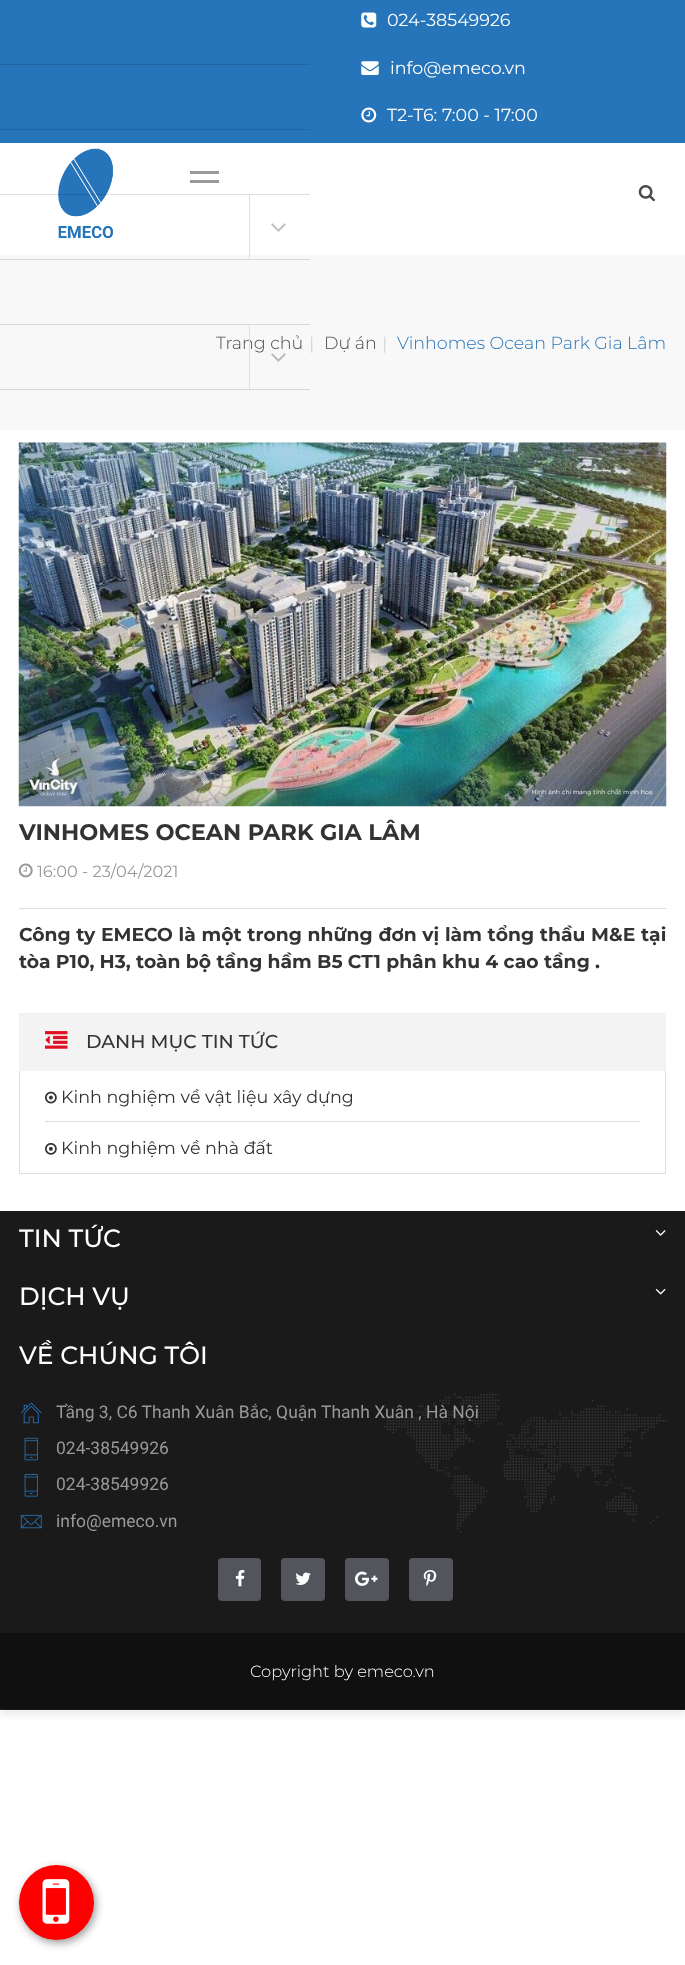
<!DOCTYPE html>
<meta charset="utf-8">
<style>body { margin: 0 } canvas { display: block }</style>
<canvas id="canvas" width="685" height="1965"></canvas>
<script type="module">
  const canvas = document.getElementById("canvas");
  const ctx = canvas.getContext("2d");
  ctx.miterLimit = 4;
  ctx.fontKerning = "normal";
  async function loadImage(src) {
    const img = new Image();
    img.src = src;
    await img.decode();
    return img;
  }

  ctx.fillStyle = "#ffffff";
  ctx.fillRect(0, 0, 685, 1965);
  ctx.save();
  ctx.beginPath();
  ctx.rect(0, 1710, 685, 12);
  ctx.clip();
  ctx.fillStyle = "#f1eded";
  ctx.filter = "blur(3px)";
  ctx.beginPath();
  ctx.rect(0, 6, 685, 1710);
  ctx.fill();
  ctx.filter = "none";
  ctx.restore();
  ctx.fillStyle = "#2674ba";
  ctx.fillRect(0, 0, 685, 143);
  ctx.drawImage(await loadImage("img1.png"), 361, 12, 16, 16);
  ctx.font = "17.5px Montserrat";
  ctx.fillStyle = "#ffffff";
  ctx.fillText("024-38549926", 387, 26);
  ctx.drawImage(await loadImage("img2.png"), 361, 61, 18, 14);
  ctx.fillText("info@emeco.vn", 390, 74);
  ctx.drawImage(await loadImage("img3.png"), 361, 107, 16, 16);
  ctx.fillText("T2-T6: 7:00 - 17:00", 387, 121);
  ctx.fillStyle = "#2165a2";
  ctx.fillRect(0, 64, 310, 1);
  ctx.fillRect(0, 129, 310, 1);
  ctx.drawImage(await loadImage("img6.png"), 58, 148, 55, 91);
  ctx.fillStyle = "rgba(0, 0, 0, 0.13)";
  ctx.fillRect(0, 194, 310, 1);
  ctx.fillStyle = "#f8f8f8";
  ctx.fillRect(0, 255, 685, 175);
  ctx.fillStyle = "#e0e0e0";
  ctx.fillRect(249, 195, 1, 64);
  ctx.drawImage(await loadImage("img4.png"), 271, 223, 15, 9);
  ctx.fillStyle = "#d8d8d8";
  ctx.fillRect(0, 259, 310, 1);
  ctx.fillRect(0, 324, 310, 1);
  ctx.font = "300 17.5px Montserrat";
  ctx.fillStyle = "#4b4b4b";
  ctx.fillText("Trang chủ", 216, 349);
  ctx.fillStyle = "#e0e0e0";
  ctx.fillRect(249, 325, 1, 64);
  ctx.drawImage(await loadImage("img5.png"), 271, 353, 15, 9);
  ctx.fillStyle = "#d8d8d8";
  ctx.fillRect(0, 389, 310, 1);
  ctx.fillStyle = "#999999";
  ctx.fillRect(190, 171, 29, 3);
  ctx.fillRect(190, 180, 29, 3);
  ctx.drawImage(await loadImage("img7.png"), 638, 185, 17, 17);
  ctx.font = "17.5px Liberation Serif";
  ctx.fillStyle = "#cccccc";
  ctx.fillText("|", 310, 349);
  ctx.font = "300 17.5px Montserrat";
  ctx.fillStyle = "#4b4b4b";
  ctx.fillText("Dự án", 324, 349);
  ctx.font = "17.5px Liberation Serif";
  ctx.fillStyle = "#cccccc";
  ctx.fillText("|", 383, 349);
  ctx.font = "300 17.5px Montserrat";
  ctx.fillStyle = "#2674ba";
  ctx.fillText("Vinhomes Ocean Park Gia Lâm", 397, 349);
  ctx.fillStyle = "#dddddd";
  ctx.fillRect(19, 908, 647, 1);
  ctx.drawImage(await loadImage("img8.png"), 18, 442, 649, 365);
  ctx.font = "bold 22.5px Montserrat";
  ctx.fillStyle = "#333333";
  ctx.fillText("VINHOMES OCEAN PARK GIA LÂM", 19, 840);
  ctx.drawImage(await loadImage("img9.png"), 18, 863, 15, 15);
  ctx.font = "16.25px Montserrat";
  ctx.fillStyle = "#999999";
  ctx.fillText("16:00 - 23/04/2021", 37, 877);
  ctx.wordSpacing = "0.4px";
  ctx.font = "bold 18.75px Montserrat";
  ctx.fillStyle = "#333333";
  ctx.fillText("Công ty EMECO là một trong những đơn vị làm tổng thầu M&E tại", 19, 941);
  ctx.wordSpacing = "0px";
  ctx.fillText("tòa P10, H3, toàn bộ tầng hầm B5 CT1 phân khu 4 cao tầng .", 19, 968);
  ctx.fillStyle = "#f3f3f3";
  ctx.fillRect(19, 1013, 647, 58);
  ctx.drawImage(await loadImage("img10.png"), 45, 1031, 23, 18);
  ctx.font = "500 18.75px Montserrat";
  ctx.fillStyle = "#333333";
  ctx.fillText("DANH MỤC TIN TỨC", 86, 1048);
  ctx.fillStyle = "#dddddd";
  ctx.fillRect(665, 1071, 1, 103);
  ctx.fillRect(19, 1173, 647, 1);
  ctx.fillRect(19, 1071, 1, 103);
  ctx.fillRect(45, 1121, 595, 1);
  ctx.drawImage(await loadImage("img11.png"), 45, 1091, 12, 13);
  ctx.font = "17.5px Montserrat";
  ctx.fillStyle = "#333333";
  ctx.fillText("Kinh nghiệm về vật liệu xây dựng", 61, 1103);
  ctx.drawImage(await loadImage("img12.png"), 45, 1143, 12, 12);
  ctx.fillText("Kinh nghiệm về nhà đất", 61, 1154);
  ctx.fillStyle = "#1a1a1a";
  ctx.fillRect(0, 1211, 685, 499);
  ctx.font = "500 25px Montserrat";
  ctx.fillStyle = "#ffffff";
  ctx.fillText("TIN TỨC", 19, 1247);
  ctx.drawImage(await loadImage("img13.png"), 655, 1230, 11, 6);
  ctx.fillText("DỊCH VỤ", 19, 1305);
  ctx.drawImage(await loadImage("img14.png"), 655, 1288, 11, 7);
  ctx.fillText("VỀ CHÚNG TÔI", 19, 1364);
  ctx.drawImage(await loadImage("img15.png"), 383, 1393, 284, 140);
  ctx.drawImage(await loadImage("img16.png"), 20, 1402, 22, 22);
  ctx.font = "17.5px Roboto";
  ctx.fillStyle = "#999999";
  ctx.fillText("Tầng 3, C6 Thanh Xuân Bắc, Quận Thanh Xuân , Hà Nội", 56, 1418);
  ctx.drawImage(await loadImage("img17.png"), 24, 1437, 14, 24);
  ctx.fillText("024-38549926", 56, 1454);
  ctx.drawImage(await loadImage("img18.png"), 24, 1474, 14, 23);
  ctx.fillText("024-38549926", 56, 1490);
  ctx.drawImage(await loadImage("img19.png"), 20, 1514, 22, 15);
  ctx.fillText("info@emeco.vn", 56, 1527);
  ctx.fillStyle = "#52555c";
  ctx.beginPath();
  ctx.roundRect(218, 1558, 43, 43, 4);
  ctx.fill();
  ctx.drawImage(await loadImage("img20.png"), 235, 1570, 10, 17);
  ctx.beginPath();
  ctx.roundRect(281, 1558, 44, 43, 4);
  ctx.fill();
  ctx.drawImage(await loadImage("img21.png"), 295, 1572, 16, 13);
  ctx.beginPath();
  ctx.roundRect(345, 1558, 44, 43, 4);
  ctx.fill();
  ctx.drawImage(await loadImage("img22.png"), 355, 1571, 23, 15);
  ctx.beginPath();
  ctx.roundRect(409, 1558, 44, 43, 4);
  ctx.fill();
  ctx.drawImage(await loadImage("img23.png"), 423, 1570, 14, 17);
  ctx.fillStyle = "#101010";
  ctx.fillRect(0, 1633, 685, 76);
  ctx.font = "300 16.25px Montserrat";
  ctx.fillStyle = "#ffffff";
  ctx.fillText("Copyright by emeco.vn", 250, 1677);
  ctx.fillStyle = "rgba(0, 0, 0, 0.4)";
  ctx.filter = "blur(4px)";
  ctx.beginPath();
  ctx.roundRect(21, 1868, 75, 75, 37.5);
  ctx.fill();
  ctx.filter = "none";
  ctx.fillStyle = "#ff0000";
  ctx.beginPath();
  ctx.arc(56.5, 1902.5, 37.5, 0, Math.PI * 2);
  ctx.fill();
  ctx.drawImage(await loadImage("img24.png"), 42, 1879, 28, 45);
</script>
